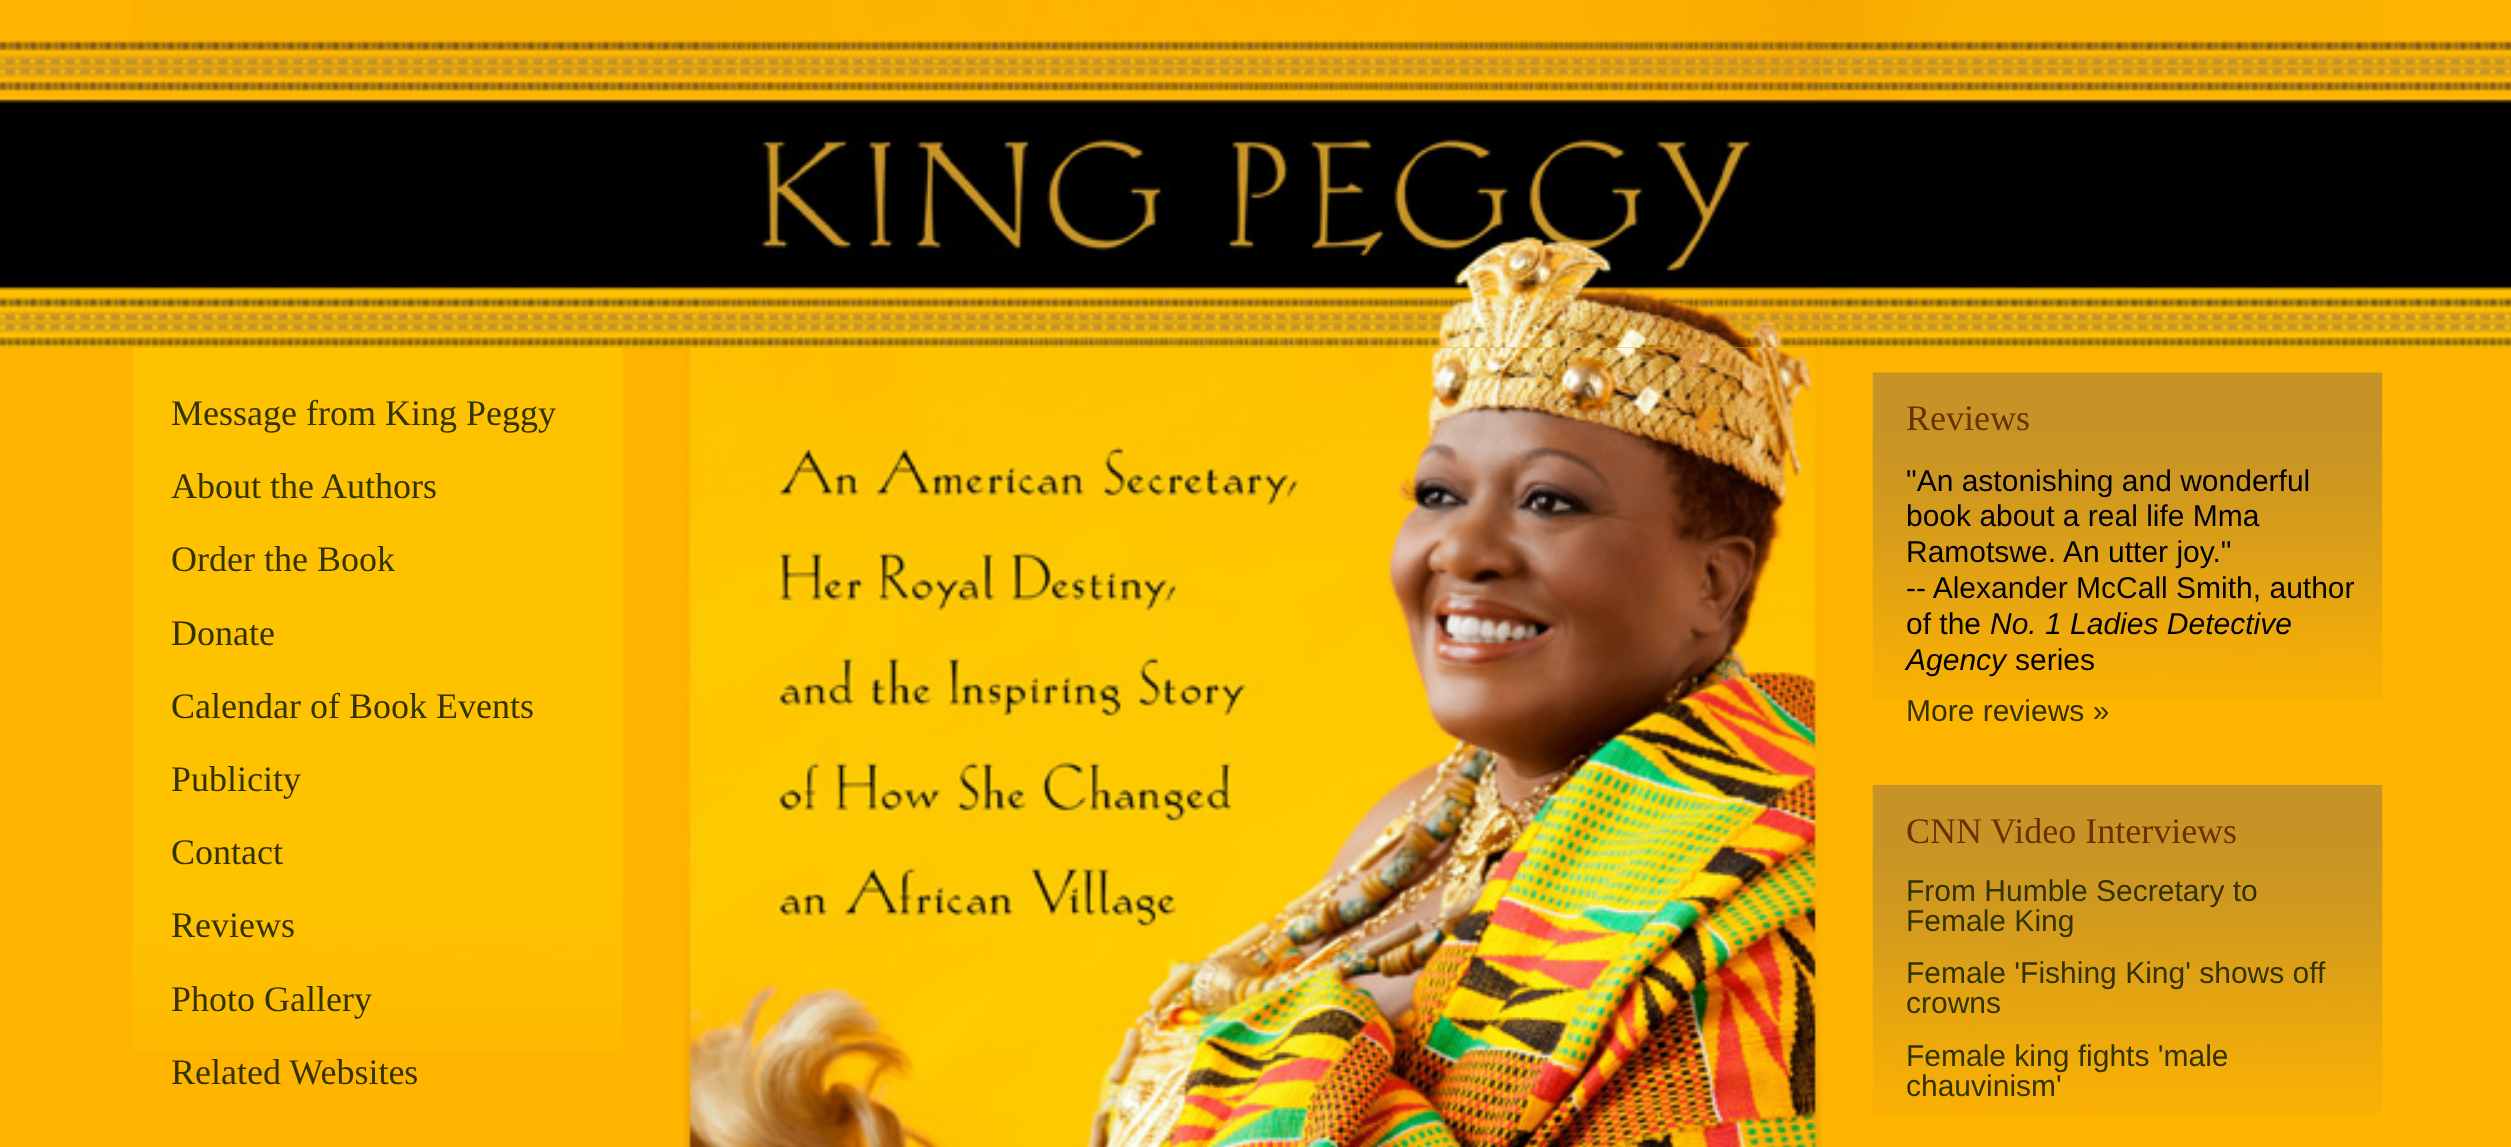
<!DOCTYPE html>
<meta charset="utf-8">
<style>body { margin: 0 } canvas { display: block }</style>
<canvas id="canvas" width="2511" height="1147"></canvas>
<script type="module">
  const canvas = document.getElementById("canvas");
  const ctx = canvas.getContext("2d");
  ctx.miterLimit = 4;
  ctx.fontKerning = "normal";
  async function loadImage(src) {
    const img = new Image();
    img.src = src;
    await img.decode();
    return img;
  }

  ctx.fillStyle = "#ffb400";
  ctx.fillRect(0, 0, 2511, 1147);
  ctx.drawImage(await loadImage("img1.png"), 0, 39, 2511, 310);
  ctx.drawImage(await loadImage("img2.png"), 132, 0, 2251, 348);
  ctx.drawImage(await loadImage("img3.png"), 132, 347, 491, 705);
  ctx.font = "36px Liberation Serif";
  ctx.fillStyle = "#333300";
  ctx.fillText("Message from King Peggy", 171, 425);
  ctx.fillText("About the Authors", 171, 498);
  ctx.fillText("Order the Book", 171, 571);
  ctx.fillText("Donate", 171, 645);
  ctx.fillText("Calendar of Book Events", 171, 718);
  ctx.fillText("Publicity", 171, 791);
  ctx.fillText("Contact", 171, 864);
  ctx.fillText("Reviews", 171, 937);
  ctx.fillText("Photo Gallery", 171, 1011);
  ctx.fillText("Related Websites", 171, 1084);
  ctx.drawImage(await loadImage("img4.png"), 683, 347, 1140, 800);
  ctx.drawImage(await loadImage("img5.png"), 1872, 372, 511, 329);
  ctx.fillStyle = "#663300";
  ctx.fillText("Reviews", 1906, 430);
  ctx.font = "30px Liberation Sans";
  ctx.fillStyle = "#000000";
  ctx.fillText("\"An astonishing and wonderful", 1906, 491);
  ctx.fillText("book about a real life Mma", 1906, 526);
  ctx.fillText("Ramotswe.", 1906, 562);
  ctx.fillText("An utter joy.\"", 2063, 562);
  ctx.fillText("-- Alexander McCall Smith, author", 1906, 598);
  ctx.fillText("of the", 1906, 634);
  ctx.font = "italic 30px Liberation Sans";
  ctx.fillText("No. 1 Ladies Detective", 1990, 634);
  ctx.fillText("Agency", 1906, 670);
  ctx.font = "30px Liberation Sans";
  ctx.fillText("series", 2015, 670);
  ctx.fillStyle = "#333300";
  ctx.fillText("More reviews »", 1906, 721);
  ctx.drawImage(await loadImage("img6.png"), 1872, 785, 511, 329);
  ctx.font = "36px Liberation Serif";
  ctx.fillStyle = "#663300";
  ctx.fillText("CNN Video Interviews", 1906, 843);
  ctx.font = "30px Liberation Sans";
  ctx.fillStyle = "#333300";
  ctx.fillText("From Humble Secretary to", 1906, 901);
  ctx.fillText("Female King", 1906, 931);
  ctx.fillText("Female 'Fishing King' shows off", 1906, 983);
  ctx.fillText("crowns", 1906, 1013);
  ctx.fillText("Female king fights 'male", 1906, 1066);
  ctx.fillText("chauvinism'", 1906, 1096);
</script>
